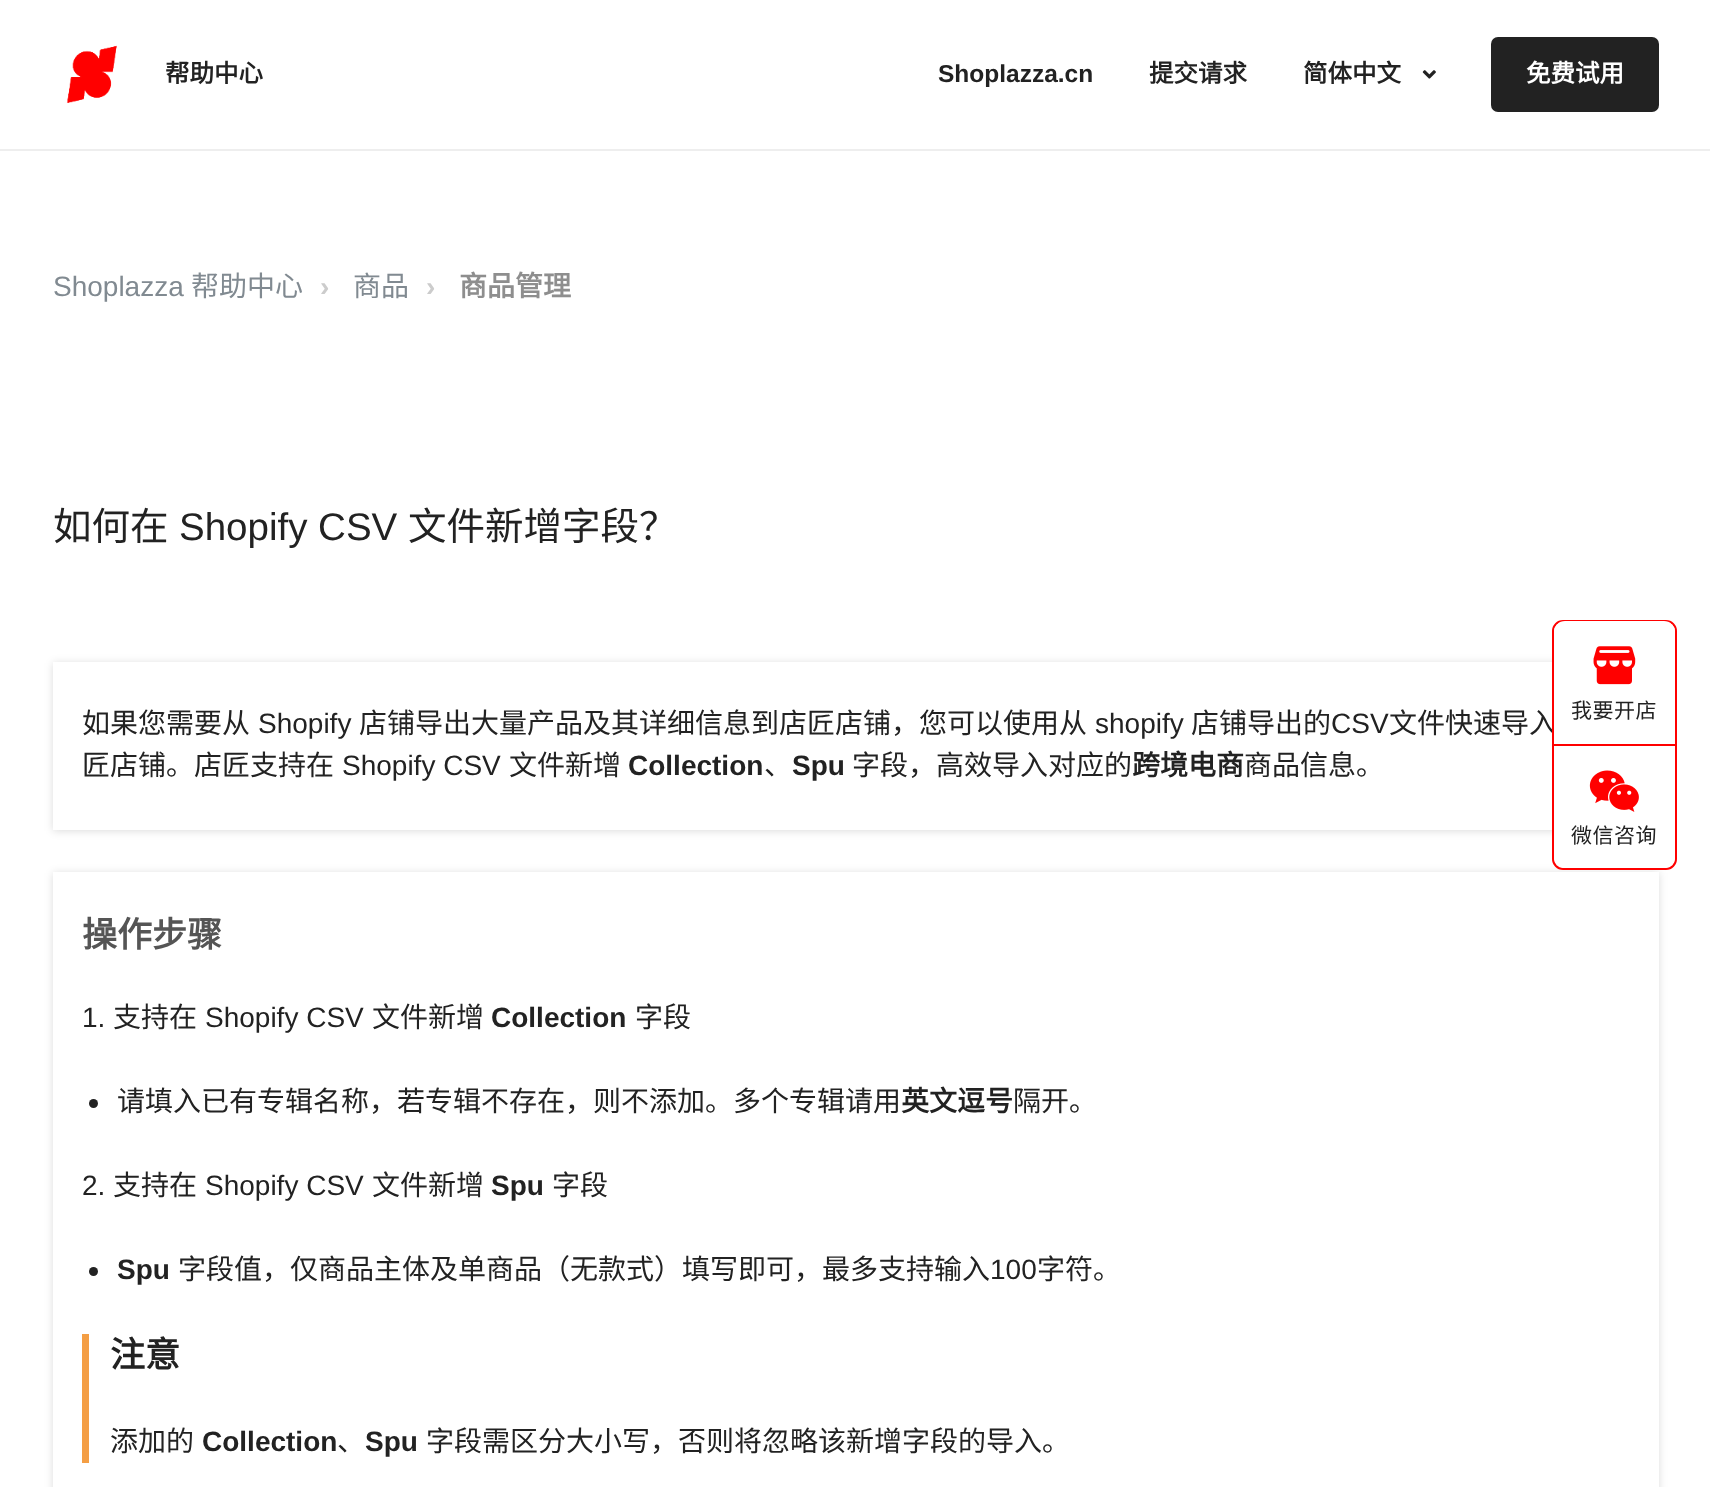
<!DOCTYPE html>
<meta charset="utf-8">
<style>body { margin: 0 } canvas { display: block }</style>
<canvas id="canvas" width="1710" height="1487"></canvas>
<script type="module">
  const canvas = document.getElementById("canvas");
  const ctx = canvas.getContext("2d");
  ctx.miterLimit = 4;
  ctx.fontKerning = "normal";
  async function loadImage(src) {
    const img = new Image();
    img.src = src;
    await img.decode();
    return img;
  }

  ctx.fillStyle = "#ffffff";
  ctx.fillRect(0, 0, 1710, 1487);
  ctx.fillStyle = "#eeeeee";
  ctx.fillRect(0, 149, 1710, 2);
  ctx.drawImage(await loadImage("img1.png"), 66, 45, 51, 58);
  ctx.font = "bold 24.5px Noto Sans CJK SC";
  ctx.fillStyle = "#222222";
  ctx.fillText("帮助中心", 165, 82);
  ctx.font = "bold 24.5px Liberation Sans";
  ctx.fillText("Shoplazza.cn", 938, 82);
  ctx.font = "bold 24.5px Noto Sans CJK SC";
  ctx.fillText("提交请求", 1149, 82);
  ctx.fillText("简体中文", 1303, 82);
  ctx.drawImage(await loadImage("img2.png"), 1422, 70, 14, 9);
  ctx.beginPath();
  ctx.roundRect(1491, 37, 168, 75, 7);
  ctx.fill();
  ctx.fillStyle = "#ffffff";
  ctx.fillText("免费试用", 1526, 82);
  ctx.font = "28px Liberation Sans";
  ctx.fillStyle = "#818a91";
  ctx.fillText("Shoplazza", 53, 296);
  ctx.font = "28px Noto Sans CJK SC";
  ctx.fillText("帮助中心", 191, 296);
  ctx.font = "bold 28px Liberation Sans";
  ctx.fillStyle = "#cccccc";
  ctx.fillText("›", 320, 296);
  ctx.font = "28px Noto Sans CJK SC";
  ctx.fillStyle = "#818a91";
  ctx.fillText("商品", 353, 296);
  ctx.font = "bold 28px Liberation Sans";
  ctx.fillStyle = "#cccccc";
  ctx.fillText("›", 426, 296);
  ctx.font = "bold 28px Noto Sans CJK SC";
  ctx.fillStyle = "#8e8e8e";
  ctx.fillText("商品管理", 459, 296);
  ctx.font = "38.5px Noto Sans CJK SC";
  ctx.fillStyle = "#222222";
  ctx.fillText("如何在", 53, 540);
  ctx.font = "38.5px Liberation Sans";
  ctx.fillText("Shopify CSV", 179, 540);
  ctx.font = "38.5px Noto Sans CJK SC";
  ctx.fillText("文件新增字段？", 408, 540);
  ctx.save();
  ctx.beginPath();
  ctx.moveTo(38, 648);
  ctx.lineTo(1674, 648);
  ctx.lineTo(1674, 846);
  ctx.lineTo(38, 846);
  ctx.closePath();
  ctx.moveTo(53, 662);
  ctx.lineTo(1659, 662);
  ctx.lineTo(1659, 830);
  ctx.lineTo(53, 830);
  ctx.closePath();
  ctx.clip("evenodd");
  ctx.fillStyle = "rgba(0, 0, 0, 0.14)";
  ctx.filter = "blur(4.5px)";
  ctx.beginPath();
  ctx.rect(53, 663, 1606, 168);
  ctx.fill();
  ctx.filter = "none";
  ctx.restore();
  ctx.font = "28px Noto Sans CJK SC";
  ctx.fillText("如果您需要从", 82, 733);
  ctx.font = "28px Liberation Sans";
  ctx.fillText("Shopify", 258, 733);
  ctx.font = "28px Noto Sans CJK SC";
  ctx.fillText("店铺导出大量产品及其详细信息到店匠店铺，您可以使用从", 359, 733);
  ctx.font = "28px Liberation Sans";
  ctx.fillText("shopify", 1095, 733);
  ctx.font = "28px Noto Sans CJK SC";
  ctx.fillText("店铺导出的", 1191, 733);
  ctx.font = "28px Liberation Sans";
  ctx.fillText("CSV", 1331, 733);
  ctx.font = "28px Noto Sans CJK SC";
  ctx.fillText("文件快速导入", 1389, 733);
  ctx.fillText("匠店铺。店匠支持在", 82, 775);
  ctx.font = "28px Liberation Sans";
  ctx.fillText("Shopify CSV", 342, 775);
  ctx.font = "28px Noto Sans CJK SC";
  ctx.fillText("文件新增", 509, 775);
  ctx.font = "bold 28px Liberation Sans";
  ctx.fillText("Collection", 628, 775);
  ctx.font = "28px Noto Sans CJK SC";
  ctx.fillText("、", 764, 775);
  ctx.font = "bold 28px Liberation Sans";
  ctx.fillText("Spu", 792, 775);
  ctx.font = "28px Noto Sans CJK SC";
  ctx.fillText("字段，高效导入对应的", 852, 775);
  ctx.font = "bold 28px Noto Sans CJK SC";
  ctx.fillText("跨境电商", 1132, 775);
  ctx.font = "28px Noto Sans CJK SC";
  ctx.fillText("商品信息。", 1244, 775);
  ctx.save();
  ctx.beginPath();
  ctx.moveTo(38, 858);
  ctx.lineTo(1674, 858);
  ctx.lineTo(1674, 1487);
  ctx.lineTo(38, 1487);
  ctx.closePath();
  ctx.moveTo(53, 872);
  ctx.lineTo(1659, 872);
  ctx.lineTo(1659, 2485);
  ctx.lineTo(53, 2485);
  ctx.closePath();
  ctx.clip("evenodd");
  ctx.fillStyle = "rgba(0, 0, 0, 0.14)";
  ctx.filter = "blur(4.5px)";
  ctx.beginPath();
  ctx.rect(53, 873, 1606, 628);
  ctx.fill();
  ctx.filter = "none";
  ctx.restore();
  ctx.font = "bold 35px Noto Sans CJK SC";
  ctx.fillStyle = "#555555";
  ctx.fillText("操作步骤", 82, 947);
  ctx.font = "28px Liberation Sans";
  ctx.fillStyle = "#222222";
  ctx.fillText("1.", 82, 1027);
  ctx.font = "28px Noto Sans CJK SC";
  ctx.fillText("支持在", 113, 1027);
  ctx.font = "28px Liberation Sans";
  ctx.fillText("Shopify CSV", 205, 1027);
  ctx.font = "28px Noto Sans CJK SC";
  ctx.fillText("文件新增", 372, 1027);
  ctx.font = "bold 28px Liberation Sans";
  ctx.fillText("Collection", 491, 1027);
  ctx.font = "28px Noto Sans CJK SC";
  ctx.fillText("字段", 635, 1027);
  ctx.beginPath();
  ctx.arc(93.5, 1103.5, 4.5, 0, Math.PI * 2);
  ctx.fill();
  ctx.fillText("请填入已有专辑名称，若专辑不存在，则不添加。多个专辑请用", 117, 1111);
  ctx.font = "bold 28px Noto Sans CJK SC";
  ctx.fillText("英文逗号", 901, 1111);
  ctx.font = "28px Noto Sans CJK SC";
  ctx.fillText("隔开。", 1013, 1111);
  ctx.font = "28px Liberation Sans";
  ctx.fillText("2.", 82, 1195);
  ctx.font = "28px Noto Sans CJK SC";
  ctx.fillText("支持在", 113, 1195);
  ctx.font = "28px Liberation Sans";
  ctx.fillText("Shopify CSV", 205, 1195);
  ctx.font = "28px Noto Sans CJK SC";
  ctx.fillText("文件新增", 372, 1195);
  ctx.font = "bold 28px Liberation Sans";
  ctx.fillText("Spu", 491, 1195);
  ctx.font = "28px Noto Sans CJK SC";
  ctx.fillText("字段", 552, 1195);
  ctx.beginPath();
  ctx.arc(93.5, 1271.5, 4.5, 0, Math.PI * 2);
  ctx.fill();
  ctx.font = "bold 28px Liberation Sans";
  ctx.fillText("Spu", 117, 1279);
  ctx.font = "28px Noto Sans CJK SC";
  ctx.fillText("字段值，仅商品主体及单商品（无款式）填写即可，最多支持输入", 178, 1279);
  ctx.font = "28px Liberation Sans";
  ctx.fillText("100", 990, 1279);
  ctx.font = "28px Noto Sans CJK SC";
  ctx.fillText("字符。", 1037, 1279);
  ctx.fillStyle = "#f49e44";
  ctx.fillRect(82, 1334, 7, 129);
  ctx.font = "bold 35px Noto Sans CJK SC";
  ctx.fillStyle = "#222222";
  ctx.fillText("注意", 110, 1367);
  ctx.font = "28px Noto Sans CJK SC";
  ctx.fillText("添加的", 110, 1451);
  ctx.font = "bold 28px Liberation Sans";
  ctx.fillText("Collection", 202, 1451);
  ctx.font = "28px Noto Sans CJK SC";
  ctx.fillText("、", 337, 1451);
  ctx.font = "bold 28px Liberation Sans";
  ctx.fillText("Spu", 365, 1451);
  ctx.font = "28px Noto Sans CJK SC";
  ctx.fillText("字段需区分大小写，否则将忽略该新增字段的导入。", 426, 1451);
  ctx.beginPath();
  ctx.roundRect(1553, 621, 123, 248, 10);
  ctx.strokeStyle = "#ff0000";
  ctx.lineWidth = 2;
  ctx.stroke();
  ctx.fillStyle = "#ffffff";
  ctx.beginPath();
  ctx.roundRect(1554, 621, 121, 125, [11, 11, 0, 0]);
  ctx.fill();
  ctx.fillStyle = "#ff0000";
  ctx.fillRect(1554, 744, 121, 2);
  ctx.drawImage(await loadImage("img3.png"), 1593, 646, 43, 39);
  ctx.letterSpacing = "0.5px";
  ctx.font = "21px Noto Sans CJK SC";
  ctx.fillStyle = "#222222";
  ctx.fillText("我要开店", 1571, 718);
  ctx.fillStyle = "#ffffff";
  ctx.beginPath();
  ctx.roundRect(1554, 746, 121, 122, [0, 0, 11, 11]);
  ctx.fill();
  ctx.drawImage(await loadImage("img4.png"), 1589, 770, 50, 42);
  ctx.fillStyle = "#222222";
  ctx.fillText("微信咨询", 1571, 843);
</script>
